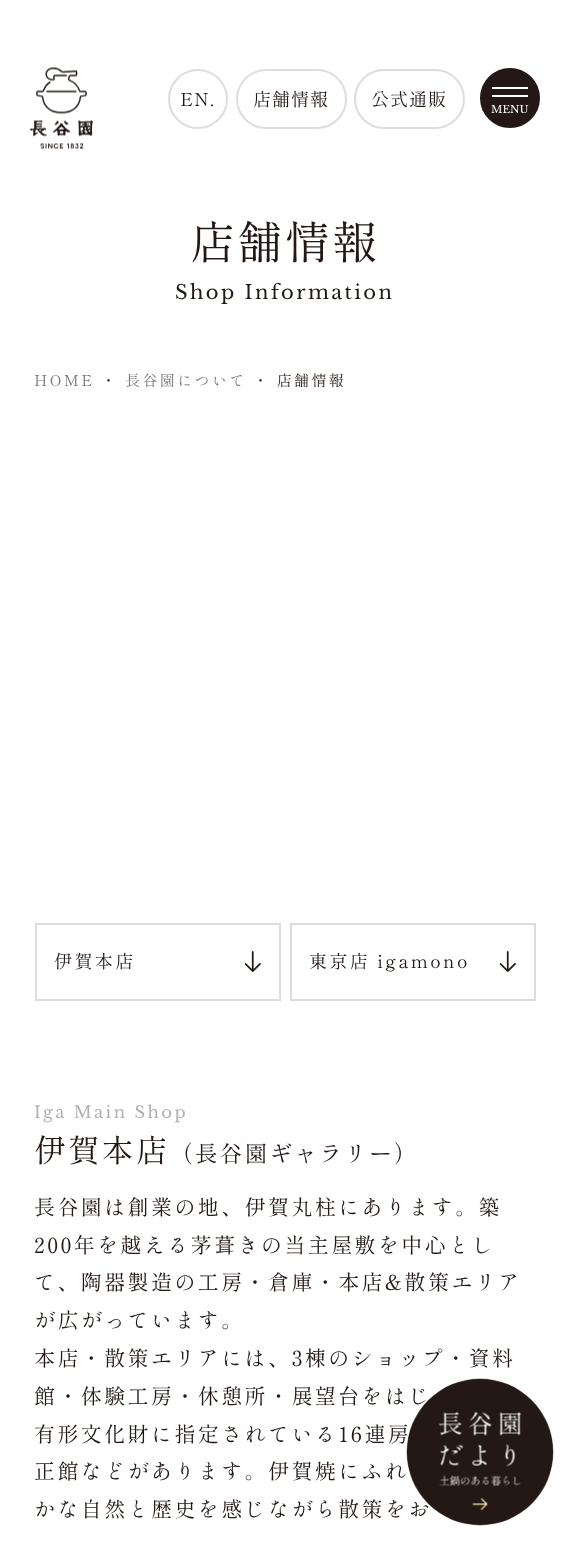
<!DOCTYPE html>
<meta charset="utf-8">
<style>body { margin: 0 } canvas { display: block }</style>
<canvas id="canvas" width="570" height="1541"></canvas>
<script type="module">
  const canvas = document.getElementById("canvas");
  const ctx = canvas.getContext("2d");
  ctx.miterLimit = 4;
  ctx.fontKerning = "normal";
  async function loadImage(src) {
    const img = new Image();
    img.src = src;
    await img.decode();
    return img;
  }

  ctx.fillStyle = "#ffffff";
  ctx.fillRect(0, 0, 570, 1541);
  ctx.drawImage(await loadImage("img1.png"), 30, 67, 63, 82);
  ctx.beginPath();
  ctx.arc(198, 99, 29, 0, Math.PI * 2);
  ctx.strokeStyle = "#dddddd";
  ctx.lineWidth = 2;
  ctx.stroke();
  ctx.letterSpacing = "1px";
  ctx.font = "18px Shippori Mincho";
  ctx.fillStyle = "#231815";
  ctx.fillText("EN.", 180, 106);
  ctx.beginPath();
  ctx.roundRect(237, 70, 109, 58, 29);
  ctx.stroke();
  ctx.fillText("店舗情報", 253, 106);
  ctx.beginPath();
  ctx.roundRect(355, 70, 109, 58, 29);
  ctx.stroke();
  ctx.fillText("公式通販", 371, 106);
  ctx.beginPath();
  ctx.arc(510, 98, 29, 0, Math.PI * 2);
  ctx.fill();
  ctx.strokeStyle = "#231815";
  ctx.stroke();
  ctx.fillStyle = "#ffffff";
  ctx.fillRect(492, 87, 36, 2);
  ctx.fillRect(492, 95, 36, 2);
  ctx.letterSpacing = "0px";
  ctx.font = "10.5px Libre Baskerville";
  ctx.fillText("MENU", 491, 113);
  ctx.letterSpacing = "2.4px";
  ctx.font = "45px Shippori Mincho";
  ctx.fillStyle = "#231815";
  ctx.fillText("店舗情報", 190, 259);
  ctx.font = "19.5px Libre Baskerville";
  ctx.fillText("Shop Information", 175, 299);
  ctx.font = "15px Shippori Mincho";
  ctx.fillStyle = "#767676";
  ctx.fillText("HOME", 34, 386);
  ctx.fillStyle = "#231815";
  ctx.fillText("・", 101, 386);
  ctx.fillStyle = "#767676";
  ctx.fillText("長谷園について", 125, 386);
  ctx.fillStyle = "#231815";
  ctx.fillText("・ 店舗情報", 253, 386);
  ctx.drawImage(await loadImage("img2.png"), 245, 951, 16, 21);
  ctx.strokeStyle = "#dddddd";
  ctx.strokeRect(36, 924, 244, 76);
  ctx.font = "18px Shippori Mincho";
  ctx.fillText("伊賀本店", 54, 968);
  ctx.drawImage(await loadImage("img2.png"), 500, 951, 16, 21);
  ctx.strokeRect(291, 924, 244, 76);
  ctx.fillText("東京店 igamono", 309, 968);
  ctx.font = "16.5px Libre Baskerville";
  ctx.fillStyle = "#b2b2b2";
  ctx.fillText("Iga Main Shop", 34, 1118);
  ctx.font = "31.5px Shippori Mincho";
  ctx.fillStyle = "#231815";
  ctx.fillText("伊賀本店", 34, 1162);
  ctx.font = "22.5px Shippori Mincho";
  ctx.fillText("（長谷園ギャラリー）", 170, 1162);
  ctx.font = "21px Shippori Mincho";
  ctx.fillText("長谷園は創業の地、伊賀丸柱にあります。築", 34, 1215);
  ctx.fillText("200年を越える茅葺きの当主屋敷を中心とし", 34, 1253);
  ctx.fillText("て、陶器製造の工房・倉庫・本店&散策エリア", 34, 1290);
  ctx.fillText("が広がっています。", 34, 1328);
  ctx.fillText("本店・散策エリアには、3棟のショップ・資料", 34, 1366);
  ctx.fillText("館・体験工房・休憩所・展望台をはじ", 34, 1404);
  ctx.fillText("有形文化財に指定されている16連房", 34, 1442);
  ctx.fillText("正館などがあります。伊賀焼にふれ", 34, 1479);
  ctx.fillText("かな自然と歴史を感じながら散策をお", 34, 1517);
  ctx.beginPath();
  ctx.arc(480, 1452, 74, 0, Math.PI * 2);
  ctx.strokeStyle = "#ffffff";
  ctx.stroke();
  ctx.drawImage(await loadImage("img3.png"), 406, 1378, 148, 148);
</script>
